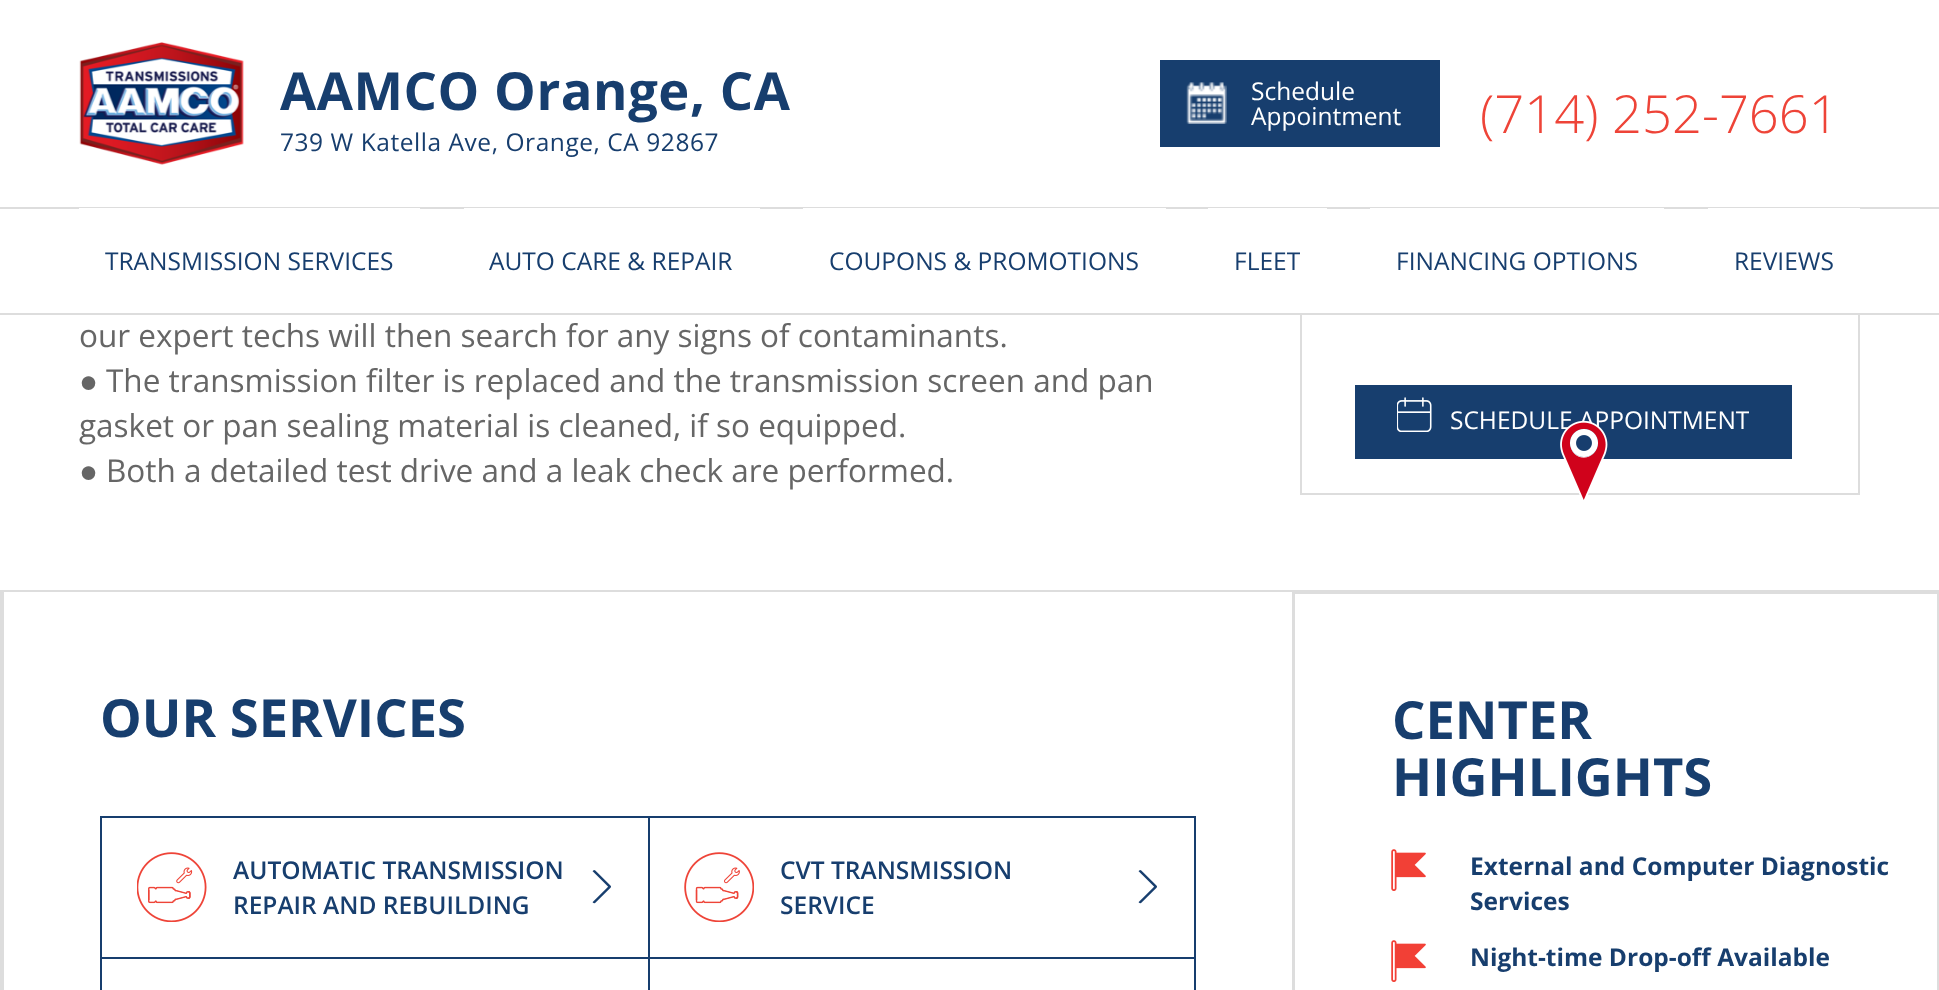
<!DOCTYPE html>
<meta charset="utf-8">
<style>body { margin: 0 } canvas { display: block }</style>
<canvas id="canvas" width="1939" height="990"></canvas>
<script type="module">
  const canvas = document.getElementById("canvas");
  const ctx = canvas.getContext("2d");
  ctx.miterLimit = 4;
  ctx.fontKerning = "normal";
  async function loadImage(src) {
    const img = new Image();
    img.src = src;
    await img.decode();
    return img;
  }

  ctx.fillStyle = "#ffffff";
  ctx.fillRect(0, 0, 1939, 990);
  ctx.strokeStyle = "#dddddd";
  ctx.lineWidth = 2;
  ctx.strokeRect(1301, -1, 558, 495);
  ctx.fillRect(1300, 0, 560, 313);
  ctx.drawImage(await loadImage("img1.png"), 79, 42, 165, 123);
  ctx.letterSpacing = "0.55px";
  ctx.font = "bold 52.5px Open Sans";
  ctx.fillStyle = "#173e6e";
  ctx.fillText("AAMCO Orange, CA", 280, 110);
  ctx.font = "24.5px Open Sans";
  ctx.fillText("739 W Katella Ave, Orange, CA 92867", 280, 151);
  ctx.fillRect(1160, 60, 280, 87);
  ctx.drawImage(await loadImage("img2.png"), 1186, 82, 41, 42);
  ctx.letterSpacing = "0px";
  ctx.fillStyle = "#ffffff";
  ctx.fillText("Schedule", 1251, 100);
  ctx.fillText("Appointment", 1251, 125);
  ctx.font = "300 52.5px Open Sans";
  ctx.fillStyle = "#ee4438";
  ctx.fillText("(714) 252-7661", 1480, 133);
  ctx.fillStyle = "#dddddd";
  ctx.fillRect(0, 207, 1939, 2);
  ctx.fillRect(0, 313, 1939, 2);
  ctx.fillStyle = "#ffffff";
  ctx.fillRect(79, 208, 341, 1);
  ctx.font = "24.5px Open Sans";
  ctx.fillStyle = "#173e6e";
  ctx.fillText("TRANSMISSION SERVICES", 105, 270);
  ctx.fillStyle = "#ffffff";
  ctx.fillRect(464, 208, 296, 1);
  ctx.fillStyle = "#173e6e";
  ctx.fillText("AUTO CARE & REPAIR", 489, 270);
  ctx.fillStyle = "#ffffff";
  ctx.fillRect(803, 208, 363, 1);
  ctx.fillStyle = "#173e6e";
  ctx.fillText("COUPONS & PROMOTIONS", 829, 270);
  ctx.fillStyle = "#ffffff";
  ctx.fillRect(1208, 208, 119, 1);
  ctx.fillStyle = "#173e6e";
  ctx.fillText("FLEET", 1234, 270);
  ctx.fillStyle = "#ffffff";
  ctx.fillRect(1370, 208, 294, 1);
  ctx.fillStyle = "#173e6e";
  ctx.fillText("FINANCING OPTIONS", 1396, 270);
  ctx.fillStyle = "#ffffff";
  ctx.fillRect(1708, 208, 152, 1);
  ctx.fillStyle = "#173e6e";
  ctx.fillText("REVIEWS", 1734, 270);
  ctx.font = "31.5px Open Sans";
  ctx.fillStyle = "#666666";
  ctx.fillText("our expert techs will then search for any signs of contaminants.", 79, 347);
  ctx.font = "31.5px Liberation Serif";
  ctx.fillText("●", 79, 392);
  ctx.font = "31.5px Open Sans";
  ctx.fillText("The transmission filter is replaced and the transmission screen and pan", 106, 392);
  ctx.fillText("gasket or pan sealing material is cleaned, if so equipped.", 79, 437);
  ctx.font = "31.5px Liberation Serif";
  ctx.fillText("●", 79, 482);
  ctx.font = "31.5px Open Sans";
  ctx.fillText("Both a detailed test drive and a leak check are performed.", 106, 482);
  ctx.fillStyle = "#173e6e";
  ctx.fillRect(1355, 385, 437, 74);
  ctx.drawImage(await loadImage("img3.png"), 1397, 397, 35, 35);
  ctx.font = "24.5px Open Sans";
  ctx.fillStyle = "#ffffff";
  ctx.fillText("SCHEDULE APPOINTMENT", 1450, 429);
  ctx.drawImage(await loadImage("img4.png"), 1560, 420, 48, 80);
  ctx.fillStyle = "#dddddd";
  ctx.fillRect(0, 590, 1939, 2);
  ctx.fillRect(0, 590, 2, 400);
  ctx.fillRect(1292, 592, 1, 398);
  ctx.fillRect(2, 592, 2, 398);
  ctx.font = "bold 52.5px Open Sans";
  ctx.fillStyle = "#173e6e";
  ctx.fillText("OUR SERVICES", 100, 737);
  ctx.fillRect(100, 816, 1095, 2);
  ctx.fillRect(1194, 816, 2, 174);
  ctx.fillRect(100, 816, 2, 174);
  ctx.drawImage(await loadImage("img5.png"), 137, 852, 70, 70);
  ctx.font = "600 24.5px Open Sans";
  ctx.fillText("AUTOMATIC TRANSMISSION", 233, 879);
  ctx.fillText("REPAIR AND REBUILDING", 233, 914);
  ctx.drawImage(await loadImage("img6.png"), 592, 870, 19, 34);
  ctx.fillRect(648, 957, 547, 2);
  ctx.fillRect(648, 957, 2, 33);
  ctx.fillRect(100, 957, 549, 2);
  ctx.fillRect(648, 816, 2, 143);
  ctx.drawImage(await loadImage("img7.png"), 684, 852, 70, 70);
  ctx.fillText("CVT TRANSMISSION", 780, 879);
  ctx.fillText("SERVICE", 780, 914);
  ctx.drawImage(await loadImage("img6.png"), 1138, 870, 19, 34);
  ctx.strokeRect(1294, 593, 644, 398);
  ctx.font = "bold 52.5px Open Sans";
  ctx.fillText("CENTER", 1392, 739);
  ctx.fillText("HIGHLIGHTS", 1392, 796);
  ctx.drawImage(await loadImage("img8.png"), 1391, 849, 35, 42);
  ctx.font = "bold 24.5px Open Sans";
  ctx.fillText("External and Computer Diagnostic", 1470, 875);
  ctx.fillText("Services", 1470, 910);
  ctx.drawImage(await loadImage("img8.png"), 1391, 940, 35, 42);
  ctx.fillText("Night-time Drop-off Available", 1470, 966);
</script>
